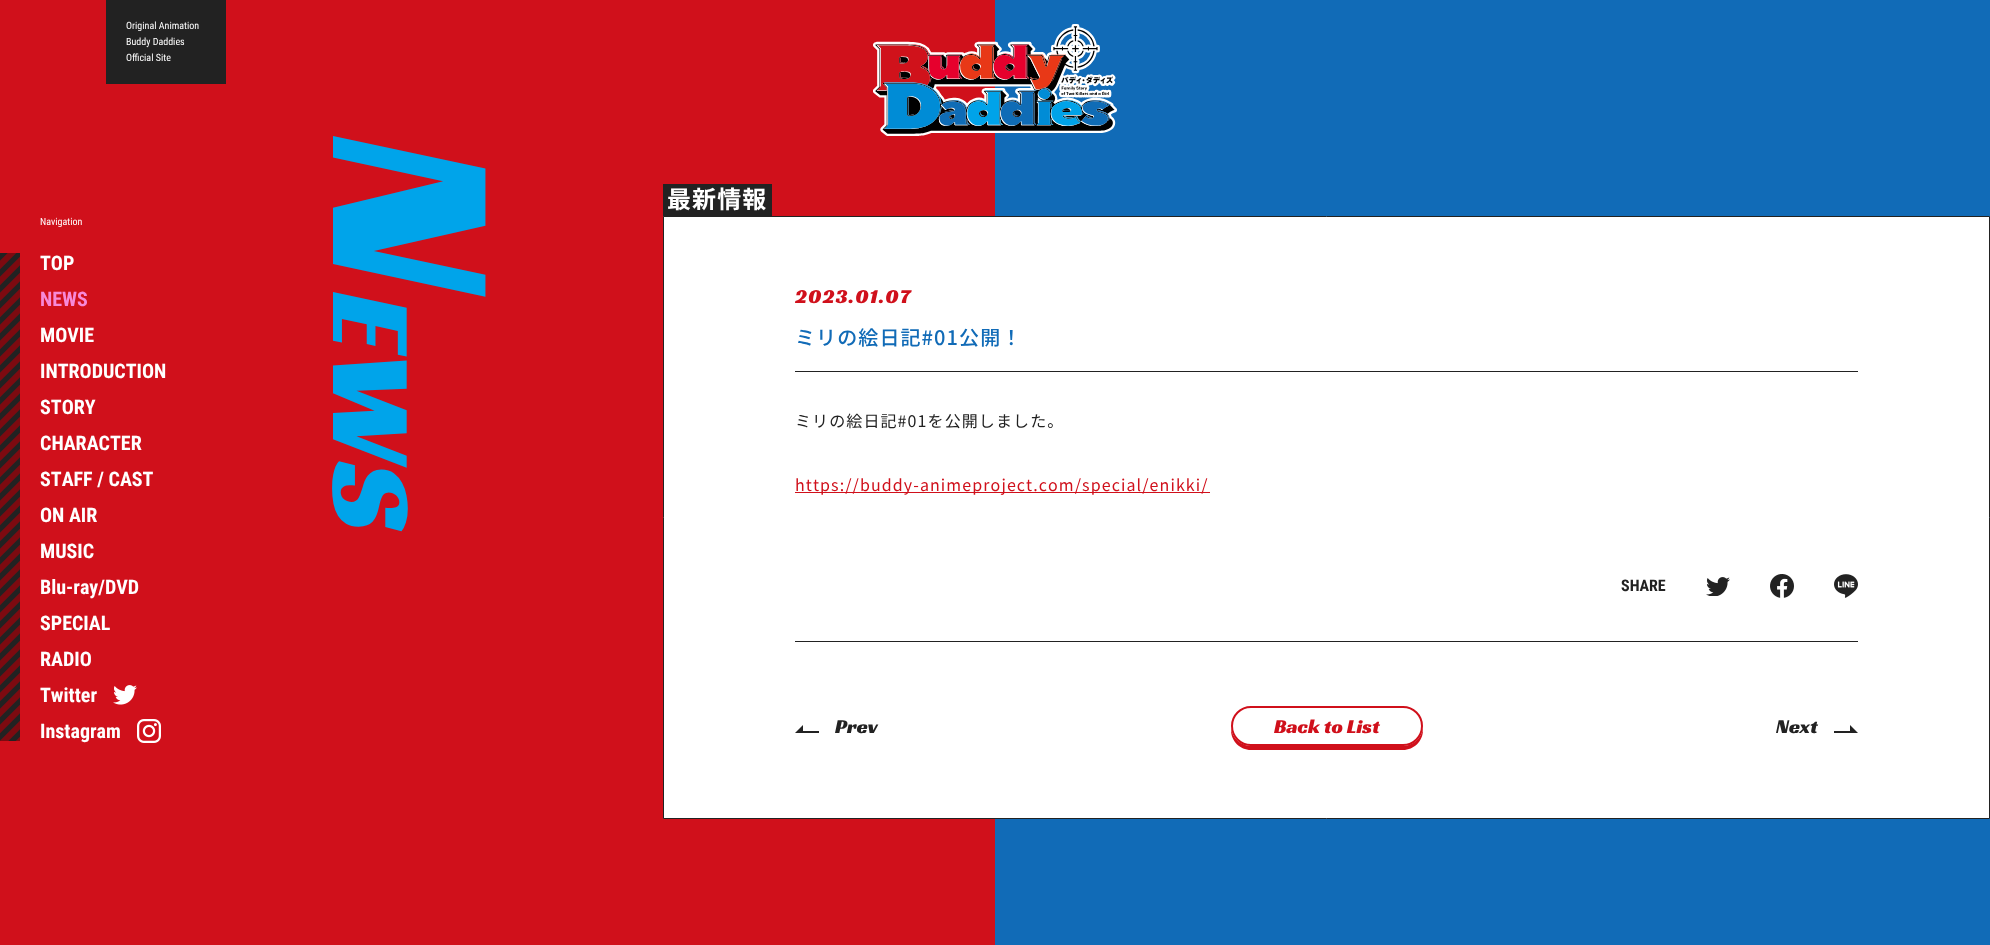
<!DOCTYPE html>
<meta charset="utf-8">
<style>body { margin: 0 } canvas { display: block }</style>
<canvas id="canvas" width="1990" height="945"></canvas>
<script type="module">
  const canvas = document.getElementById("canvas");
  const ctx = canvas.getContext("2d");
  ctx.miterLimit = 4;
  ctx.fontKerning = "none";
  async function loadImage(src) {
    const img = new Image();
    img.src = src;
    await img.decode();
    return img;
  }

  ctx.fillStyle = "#d0101b";
  ctx.fillRect(0, 0, 1990, 945);
  ctx.fillStyle = "#116bb7";
  ctx.fillRect(995, 0, 995, 945);
  ctx.font = "10px Roboto Condensed";
  ctx.fillStyle = "#ffffff";
  ctx.fillText("Navigation", 40, 225);
  ctx.fillStyle = "#7d0a10";
  ctx.fillRect(0, 253, 20, 488);
  ctx.drawImage(await loadImage("img1.png"), 0, 253, 20, 488);
  ctx.font = "bold 20px Roboto Condensed";
  ctx.fillStyle = "#ffffff";
  ctx.fillText("TOP", 40, 270);
  ctx.fillStyle = "#f789d8";
  ctx.fillText("NEWS", 40, 306);
  ctx.fillStyle = "#ffffff";
  ctx.fillText("MOVIE", 40, 342);
  ctx.fillText("INTRODUCTION", 40, 378);
  ctx.fillText("STORY", 40, 414);
  ctx.fillText("CHARACTER", 40, 450);
  ctx.fillText("STAFF / CAST", 40, 486);
  ctx.fillText("ON AIR", 40, 522);
  ctx.fillText("MUSIC", 40, 558);
  ctx.fillText("Blu-ray/DVD", 40, 594);
  ctx.fillText("SPECIAL", 40, 630);
  ctx.fillText("RADIO", 40, 666);
  ctx.fillText("Twitter", 40, 702);
  ctx.drawImage(await loadImage("img2.png"), 113, 685, 24, 20);
  ctx.fillText("Instagram", 40, 738);
  ctx.drawImage(await loadImage("img3.png"), 137, 719, 24, 24);
  ctx.fillStyle = "#222222";
  ctx.fillRect(106, 0, 120, 84);
  ctx.font = "10px Roboto Condensed";
  ctx.fillStyle = "#ffffff";
  ctx.fillText("Original Animation", 126, 29);
  ctx.fillText("Buddy Daddies", 126, 45);
  ctx.fillText("Official Site", 126, 61);
  ctx.drawImage(await loadImage("img4.png"), 873, 24, 244, 112);
  ctx.letterSpacing = "1.1px";
  ctx.font = "240px Racing Sans One";
  ctx.fillStyle = "#00a4ea";
  ctx.save();
  ctx.translate(333, 136);
  ctx.rotate(90 * Math.PI / 180);
  ctx.fillText("N", 0, 0);
  ctx.restore();
  ctx.font = "116px Racing Sans One";
  ctx.save();
  ctx.translate(333, 292);
  ctx.rotate(90 * Math.PI / 180);
  ctx.fillText("EWS", 0, 0);
  ctx.restore();
  ctx.fillStyle = "#222222";
  ctx.fillRect(663, 184, 109, 32);
  ctx.font = "bold 24px Noto Sans JP";
  ctx.fillStyle = "#ffffff";
  ctx.fillText("最新情報", 667, 208);
  ctx.beginPath();
  ctx.rect(663.5, 216.5, 1326, 602);
  ctx.fill();
  ctx.strokeStyle = "#222222";
  ctx.stroke();
  ctx.fillStyle = "#222222";
  ctx.fillRect(795, 371, 1063, 1);
  ctx.font = "20px Racing Sans One";
  ctx.fillStyle = "#d0101b";
  ctx.fillText("2023.01.07", 795, 303);
  ctx.font = "500 20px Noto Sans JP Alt";
  ctx.fillStyle = "#116bb7";
  ctx.fillText("ミリの絵日記#01公開！", 795, 345);
  ctx.font = "16px Noto Sans JP Alt";
  ctx.fillStyle = "#222222";
  ctx.fillText("ミリの絵日記#01を公開しました。", 795, 427);
  ctx.fillStyle = "#d0101b";
  ctx.fillRect(795, 492, 415, 1);
  ctx.font = "16px Noto Sans JP";
  ctx.fillText("https://buddy-animeproject.com/special/enikki/", 795, 491);
  ctx.fillStyle = "#222222";
  ctx.fillRect(795, 641, 1063, 1);
  ctx.letterSpacing = "0px";
  ctx.font = "bold 16px Roboto Condensed";
  ctx.fillText("SHARE", 1621, 591);
  ctx.drawImage(await loadImage("img5.png"), 1706, 577, 24, 19);
  ctx.drawImage(await loadImage("img6.png"), 1770, 574, 24, 24);
  ctx.drawImage(await loadImage("img7.png"), 1834, 574, 24, 24);
  ctx.beginPath();
  ctx.moveTo(795, 733);
  ctx.lineTo(819, 733);
  ctx.lineTo(819, 731);
  ctx.lineTo(803, 731);
  ctx.lineTo(803, 725);
  ctx.closePath();
  ctx.fill("evenodd");
  ctx.font = "20px Racing Sans One";
  ctx.fillText("Prev", 835, 733);
  ctx.fillStyle = "#d0101b";
  ctx.beginPath();
  ctx.moveTo(1231, 728);
  ctx.lineTo(1231, 730);
  ctx.bezierCurveTo(1231, 741, 1240, 750, 1251, 750);
  ctx.lineTo(1403, 750);
  ctx.bezierCurveTo(1414, 750, 1423, 741, 1423, 730);
  ctx.lineTo(1423, 728);
  ctx.bezierCurveTo(1422, 738, 1413, 746, 1403, 746);
  ctx.lineTo(1251, 746);
  ctx.bezierCurveTo(1241, 746, 1232, 738, 1231, 728);
  ctx.closePath();
  ctx.fill();
  ctx.fillStyle = "#ffffff";
  ctx.beginPath();
  ctx.roundRect(1232, 707, 190, 38, 19);
  ctx.fill();
  ctx.strokeStyle = "#d0101b";
  ctx.lineWidth = 2;
  ctx.stroke();
  ctx.fillStyle = "#d0101b";
  ctx.fillText("Back to List", 1274, 733);
  ctx.fillStyle = "#222222";
  ctx.fillText("Next", 1776, 733);
  ctx.beginPath();
  ctx.moveTo(1858, 733);
  ctx.lineTo(1834, 733);
  ctx.lineTo(1834, 731);
  ctx.lineTo(1850, 731);
  ctx.lineTo(1850, 725);
  ctx.closePath();
  ctx.fill("evenodd");
</script>
